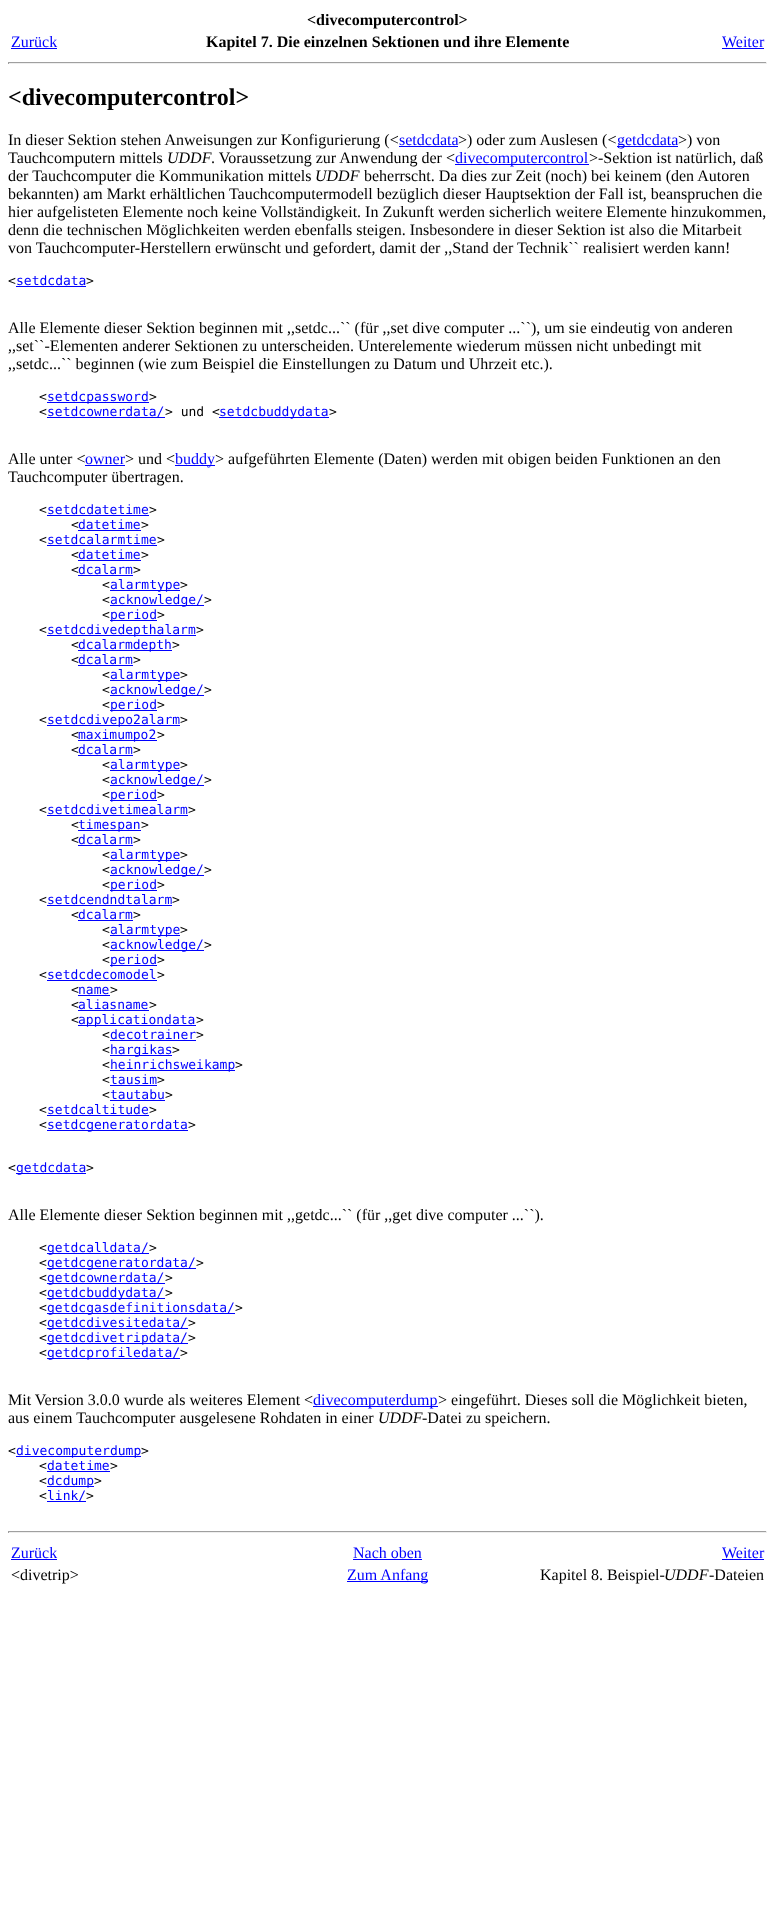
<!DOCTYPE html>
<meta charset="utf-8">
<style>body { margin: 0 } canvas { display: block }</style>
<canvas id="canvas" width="775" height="1915"></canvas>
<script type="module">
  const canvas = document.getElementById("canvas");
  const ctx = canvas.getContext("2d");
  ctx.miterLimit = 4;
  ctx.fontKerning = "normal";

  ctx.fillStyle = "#ffffff";
  ctx.fillRect(0, 0, 775, 1915);
  ctx.font = "bold 16px Liberation Serif";
  ctx.fillStyle = "#000000";
  ctx.fillText("<divecomputercontrol>", 307, 25);
  ctx.font = "16px Liberation Serif";
  ctx.fillStyle = "#0000ff";
  ctx.fillText("Zurück", 11, 47);
  ctx.fillRect(11, 48, 46, 1);
  ctx.font = "bold 16px Liberation Serif";
  ctx.fillStyle = "#000000";
  ctx.fillText("Kapitel 7. Die einzelnen Sektionen und ihre Elemente", 206, 47);
  ctx.font = "16px Liberation Serif";
  ctx.fillStyle = "#0000ff";
  ctx.fillText("Weiter", 722, 47);
  ctx.fillRect(722, 48, 42, 1);
  ctx.fillStyle = "#9f9f9f";
  ctx.fillRect(8, 62, 759, 1);
  ctx.fillStyle = "#eeeeee";
  ctx.fillRect(766, 62, 1, 2);
  ctx.fillRect(8, 63, 759, 1);
  ctx.fillStyle = "#9f9f9f";
  ctx.fillRect(8, 62, 1, 2);
  ctx.font = "bold 24px Liberation Serif";
  ctx.fillStyle = "#000000";
  ctx.fillText("<divecomputercontrol>", 8, 105);
  ctx.font = "16px Liberation Serif";
  ctx.fillText("In dieser Sektion stehen Anweisungen zur Konfigurierung (<", 8, 145);
  ctx.fillStyle = "#0000ff";
  ctx.fillText("setdcdata", 399, 145);
  ctx.fillRect(399, 146, 59, 1);
  ctx.fillStyle = "#000000";
  ctx.fillText(">) oder zum Auslesen (<", 458, 145);
  ctx.fillStyle = "#0000ff";
  ctx.fillRect(617, 146, 61, 1);
  ctx.fillText("getdcdata", 617, 145);
  ctx.fillStyle = "#000000";
  ctx.fillText(">) von", 678, 145);
  ctx.fillText("Tauchcomputern mittels", 8, 163);
  ctx.font = "italic 16px Liberation Serif";
  ctx.fillText("UDDF", 167, 163);
  ctx.font = "16px Liberation Serif";
  ctx.fillText(". Voraussetzung zur Anwendung der <", 211, 163);
  ctx.fillStyle = "#0000ff";
  ctx.fillRect(455, 164, 134, 1);
  ctx.fillText("divecomputercontrol", 455, 163);
  ctx.fillStyle = "#000000";
  ctx.fillText(">-Sektion ist natürlich, daß", 589, 163);
  ctx.fillText("der Tauchcomputer die Kommunikation mittels", 8, 181);
  ctx.font = "italic 16px Liberation Serif";
  ctx.fillText("UDDF", 315, 181);
  ctx.font = "16px Liberation Serif";
  ctx.fillText("beherrscht. Da dies zur Zeit (noch) bei keinem (den Autoren", 364, 181);
  ctx.fillText("bekannten) am Markt erhältlichen Tauchcomputermodell bezüglich dieser Hauptsektion der Fall ist, beanspruchen die", 8, 199);
  ctx.fillText("hier aufgelisteten Elemente noch keine Vollständigkeit. In Zukunft werden sicherlich weitere Elemente hinzukommen,", 8, 217);
  ctx.fillText("denn die technischen Möglichkeiten werden ebenfalls steigen. Insbesondere in dieser Sektion ist also die Mitarbeit", 8, 235);
  ctx.fillText("von Tauchcomputer-Herstellern erwünscht und gefordert, damit der ,,Stand der Technik`` realisiert werden kann!", 8, 253);
  ctx.font = "13px DejaVu Sans Mono";
  ctx.fillText("<", 8, 285);
  ctx.fillStyle = "#0000ff";
  ctx.fillText("setdcdata", 16, 285);
  ctx.fillRect(16, 286, 70, 1);
  ctx.fillStyle = "#000000";
  ctx.fillText(">", 86, 285);
  ctx.font = "16px Liberation Serif";
  ctx.fillText("Alle Elemente dieser Sektion beginnen mit ,,setdc...`` (für ,,set dive computer ...``), um sie eindeutig von anderen", 8, 333);
  ctx.fillText(",,set``-Elementen anderer Sektionen zu unterscheiden. Unterelemente wiederum müssen nicht unbedingt mit", 8, 351);
  ctx.fillText(",,setdc...`` beginnen (wie zum Beispiel die Einstellungen zu Datum und Uhrzeit etc.).", 8, 369);
  ctx.font = "13px DejaVu Sans Mono";
  ctx.fillText("<", 39, 401);
  ctx.fillStyle = "#0000ff";
  ctx.fillRect(47, 402, 102, 1);
  ctx.fillText("setdcpassword", 47, 401);
  ctx.fillStyle = "#000000";
  ctx.fillText(">", 149, 401);
  ctx.fillText("<", 39, 416);
  ctx.fillStyle = "#0000ff";
  ctx.fillRect(47, 417, 118, 1);
  ctx.fillText("setdcownerdata/", 47, 416);
  ctx.fillStyle = "#000000";
  ctx.fillText("> und <", 165, 416);
  ctx.fillStyle = "#0000ff";
  ctx.fillRect(219, 417, 110, 1);
  ctx.fillText("setdcbuddydata", 219, 416);
  ctx.fillStyle = "#000000";
  ctx.fillText(">", 329, 416);
  ctx.font = "16px Liberation Serif";
  ctx.fillText("Alle unter <", 8, 464);
  ctx.fillStyle = "#0000ff";
  ctx.fillText("owner", 85, 464);
  ctx.fillRect(85, 465, 40, 1);
  ctx.fillStyle = "#000000";
  ctx.fillText("> und <", 125, 464);
  ctx.fillStyle = "#0000ff";
  ctx.fillRect(175, 465, 40, 1);
  ctx.fillText("buddy", 175, 464);
  ctx.fillStyle = "#000000";
  ctx.fillText("> aufgeführten Elemente (Daten) werden mit obigen beiden Funktionen an den", 215, 464);
  ctx.fillText("Tauchcomputer übertragen.", 8, 482);
  ctx.font = "13px DejaVu Sans Mono";
  ctx.fillText("<", 39, 514);
  ctx.fillStyle = "#0000ff";
  ctx.fillText("setdcdatetime", 47, 514);
  ctx.fillRect(47, 515, 102, 1);
  ctx.fillStyle = "#000000";
  ctx.fillText(">", 149, 514);
  ctx.fillText("<", 71, 529);
  ctx.fillStyle = "#0000ff";
  ctx.fillText("datetime", 78, 529);
  ctx.fillRect(78, 530, 63, 1);
  ctx.fillStyle = "#000000";
  ctx.fillText(">", 141, 529);
  ctx.fillText("<", 39, 544);
  ctx.fillStyle = "#0000ff";
  ctx.fillText("setdcalarmtime", 47, 544);
  ctx.fillRect(47, 545, 110, 1);
  ctx.fillStyle = "#000000";
  ctx.fillText(">", 157, 544);
  ctx.fillText("<", 71, 559);
  ctx.fillStyle = "#0000ff";
  ctx.fillText("datetime", 78, 559);
  ctx.fillRect(78, 560, 63, 1);
  ctx.fillStyle = "#000000";
  ctx.fillText(">", 141, 559);
  ctx.fillText("<", 71, 574);
  ctx.fillStyle = "#0000ff";
  ctx.fillText("dcalarm", 78, 574);
  ctx.fillRect(78, 575, 55, 1);
  ctx.fillStyle = "#000000";
  ctx.fillText(">", 133, 574);
  ctx.fillText("<", 102, 589);
  ctx.fillStyle = "#0000ff";
  ctx.fillRect(110, 590, 70, 1);
  ctx.fillText("alarmtype", 110, 589);
  ctx.fillStyle = "#000000";
  ctx.fillText(">", 180, 589);
  ctx.fillText("<", 102, 604);
  ctx.fillStyle = "#0000ff";
  ctx.fillRect(110, 605, 94, 1);
  ctx.fillText("acknowledge/", 110, 604);
  ctx.fillStyle = "#000000";
  ctx.fillText(">", 204, 604);
  ctx.fillText("<", 102, 619);
  ctx.fillStyle = "#0000ff";
  ctx.fillRect(110, 620, 47, 1);
  ctx.fillText("period", 110, 619);
  ctx.fillStyle = "#000000";
  ctx.fillText(">", 157, 619);
  ctx.fillText("<", 39, 634);
  ctx.fillStyle = "#0000ff";
  ctx.fillRect(47, 635, 149, 1);
  ctx.fillText("setdcdivedepthalarm", 47, 634);
  ctx.fillStyle = "#000000";
  ctx.fillText(">", 196, 634);
  ctx.fillText("<", 71, 649);
  ctx.fillStyle = "#0000ff";
  ctx.fillRect(78, 650, 94, 1);
  ctx.fillText("dcalarmdepth", 78, 649);
  ctx.fillStyle = "#000000";
  ctx.fillText(">", 172, 649);
  ctx.fillText("<", 71, 664);
  ctx.fillStyle = "#0000ff";
  ctx.fillText("dcalarm", 78, 664);
  ctx.fillRect(78, 665, 55, 1);
  ctx.fillStyle = "#000000";
  ctx.fillText(">", 133, 664);
  ctx.fillText("<", 102, 679);
  ctx.fillStyle = "#0000ff";
  ctx.fillRect(110, 680, 70, 1);
  ctx.fillText("alarmtype", 110, 679);
  ctx.fillStyle = "#000000";
  ctx.fillText(">", 180, 679);
  ctx.fillText("<", 102, 694);
  ctx.fillStyle = "#0000ff";
  ctx.fillRect(110, 695, 94, 1);
  ctx.fillText("acknowledge/", 110, 694);
  ctx.fillStyle = "#000000";
  ctx.fillText(">", 204, 694);
  ctx.fillText("<", 102, 709);
  ctx.fillStyle = "#0000ff";
  ctx.fillRect(110, 710, 47, 1);
  ctx.fillText("period", 110, 709);
  ctx.fillStyle = "#000000";
  ctx.fillText(">", 157, 709);
  ctx.fillText("<", 39, 724);
  ctx.fillStyle = "#0000ff";
  ctx.fillRect(47, 725, 133, 1);
  ctx.fillText("setdcdivepo2alarm", 47, 724);
  ctx.fillStyle = "#000000";
  ctx.fillText(">", 180, 724);
  ctx.fillText("<", 71, 739);
  ctx.fillStyle = "#0000ff";
  ctx.fillRect(78, 740, 79, 1);
  ctx.fillText("maximumpo2", 78, 739);
  ctx.fillStyle = "#000000";
  ctx.fillText(">", 157, 739);
  ctx.fillText("<", 71, 754);
  ctx.fillStyle = "#0000ff";
  ctx.fillText("dcalarm", 78, 754);
  ctx.fillRect(78, 755, 55, 1);
  ctx.fillStyle = "#000000";
  ctx.fillText(">", 133, 754);
  ctx.fillText("<", 102, 769);
  ctx.fillStyle = "#0000ff";
  ctx.fillRect(110, 770, 70, 1);
  ctx.fillText("alarmtype", 110, 769);
  ctx.fillStyle = "#000000";
  ctx.fillText(">", 180, 769);
  ctx.fillText("<", 102, 784);
  ctx.fillStyle = "#0000ff";
  ctx.fillRect(110, 785, 94, 1);
  ctx.fillText("acknowledge/", 110, 784);
  ctx.fillStyle = "#000000";
  ctx.fillText(">", 204, 784);
  ctx.fillText("<", 102, 799);
  ctx.fillStyle = "#0000ff";
  ctx.fillRect(110, 800, 47, 1);
  ctx.fillText("period", 110, 799);
  ctx.fillStyle = "#000000";
  ctx.fillText(">", 157, 799);
  ctx.fillText("<", 39, 814);
  ctx.fillStyle = "#0000ff";
  ctx.fillText("setdcdivetimealarm", 47, 814);
  ctx.fillRect(47, 815, 141, 1);
  ctx.fillStyle = "#000000";
  ctx.fillText(">", 188, 814);
  ctx.fillText("<", 71, 829);
  ctx.fillStyle = "#0000ff";
  ctx.fillRect(78, 830, 63, 1);
  ctx.fillText("timespan", 78, 829);
  ctx.fillStyle = "#000000";
  ctx.fillText(">", 141, 829);
  ctx.fillText("<", 71, 844);
  ctx.fillStyle = "#0000ff";
  ctx.fillText("dcalarm", 78, 844);
  ctx.fillRect(78, 845, 55, 1);
  ctx.fillStyle = "#000000";
  ctx.fillText(">", 133, 844);
  ctx.fillText("<", 102, 859);
  ctx.fillStyle = "#0000ff";
  ctx.fillRect(110, 860, 70, 1);
  ctx.fillText("alarmtype", 110, 859);
  ctx.fillStyle = "#000000";
  ctx.fillText(">", 180, 859);
  ctx.fillText("<", 102, 874);
  ctx.fillStyle = "#0000ff";
  ctx.fillRect(110, 875, 94, 1);
  ctx.fillText("acknowledge/", 110, 874);
  ctx.fillStyle = "#000000";
  ctx.fillText(">", 204, 874);
  ctx.fillText("<", 102, 889);
  ctx.fillStyle = "#0000ff";
  ctx.fillRect(110, 890, 47, 1);
  ctx.fillText("period", 110, 889);
  ctx.fillStyle = "#000000";
  ctx.fillText(">", 157, 889);
  ctx.fillText("<", 39, 904);
  ctx.fillStyle = "#0000ff";
  ctx.fillText("setdcendndtalarm", 47, 904);
  ctx.fillRect(47, 905, 125, 1);
  ctx.fillStyle = "#000000";
  ctx.fillText(">", 172, 904);
  ctx.fillText("<", 71, 919);
  ctx.fillStyle = "#0000ff";
  ctx.fillText("dcalarm", 78, 919);
  ctx.fillRect(78, 920, 55, 1);
  ctx.fillStyle = "#000000";
  ctx.fillText(">", 133, 919);
  ctx.fillText("<", 102, 934);
  ctx.fillStyle = "#0000ff";
  ctx.fillRect(110, 935, 70, 1);
  ctx.fillText("alarmtype", 110, 934);
  ctx.fillStyle = "#000000";
  ctx.fillText(">", 180, 934);
  ctx.fillText("<", 102, 949);
  ctx.fillStyle = "#0000ff";
  ctx.fillRect(110, 950, 94, 1);
  ctx.fillText("acknowledge/", 110, 949);
  ctx.fillStyle = "#000000";
  ctx.fillText(">", 204, 949);
  ctx.fillText("<", 102, 964);
  ctx.fillStyle = "#0000ff";
  ctx.fillRect(110, 965, 47, 1);
  ctx.fillText("period", 110, 964);
  ctx.fillStyle = "#000000";
  ctx.fillText(">", 157, 964);
  ctx.fillText("<", 39, 979);
  ctx.fillStyle = "#0000ff";
  ctx.fillText("setdcdecomodel", 47, 979);
  ctx.fillRect(47, 980, 110, 1);
  ctx.fillStyle = "#000000";
  ctx.fillText(">", 157, 979);
  ctx.fillText("<", 71, 994);
  ctx.fillStyle = "#0000ff";
  ctx.fillText("name", 78, 994);
  ctx.fillRect(78, 995, 32, 1);
  ctx.fillStyle = "#000000";
  ctx.fillText(">", 110, 994);
  ctx.fillText("<", 71, 1009);
  ctx.fillStyle = "#0000ff";
  ctx.fillText("aliasname", 78, 1009);
  ctx.fillRect(78, 1010, 71, 1);
  ctx.fillStyle = "#000000";
  ctx.fillText(">", 149, 1009);
  ctx.fillText("<", 71, 1024);
  ctx.fillStyle = "#0000ff";
  ctx.fillRect(78, 1025, 118, 1);
  ctx.fillText("applicationdata", 78, 1024);
  ctx.fillStyle = "#000000";
  ctx.fillText(">", 196, 1024);
  ctx.fillText("<", 102, 1039);
  ctx.fillStyle = "#0000ff";
  ctx.fillText("decotrainer", 110, 1039);
  ctx.fillRect(110, 1040, 86, 1);
  ctx.fillStyle = "#000000";
  ctx.fillText(">", 196, 1039);
  ctx.fillText("<", 102, 1054);
  ctx.fillStyle = "#0000ff";
  ctx.fillRect(110, 1055, 62, 1);
  ctx.fillText("hargikas", 110, 1054);
  ctx.fillStyle = "#000000";
  ctx.fillText(">", 172, 1054);
  ctx.fillText("<", 102, 1069);
  ctx.fillStyle = "#0000ff";
  ctx.fillRect(110, 1070, 125, 1);
  ctx.fillText("heinrichsweikamp", 110, 1069);
  ctx.fillStyle = "#000000";
  ctx.fillText(">", 235, 1069);
  ctx.fillText("<", 102, 1084);
  ctx.fillStyle = "#0000ff";
  ctx.fillText("tausim", 110, 1084);
  ctx.fillRect(110, 1085, 47, 1);
  ctx.fillStyle = "#000000";
  ctx.fillText(">", 157, 1084);
  ctx.fillText("<", 102, 1099);
  ctx.fillStyle = "#0000ff";
  ctx.fillText("tautabu", 110, 1099);
  ctx.fillRect(110, 1100, 55, 1);
  ctx.fillStyle = "#000000";
  ctx.fillText(">", 165, 1099);
  ctx.fillText("<", 39, 1114);
  ctx.fillStyle = "#0000ff";
  ctx.fillText("setdcaltitude", 47, 1114);
  ctx.fillRect(47, 1115, 102, 1);
  ctx.fillStyle = "#000000";
  ctx.fillText(">", 149, 1114);
  ctx.fillText("<", 39, 1129);
  ctx.fillStyle = "#0000ff";
  ctx.fillRect(47, 1130, 141, 1);
  ctx.fillText("setdcgeneratordata", 47, 1129);
  ctx.fillStyle = "#000000";
  ctx.fillText(">", 188, 1129);
  ctx.fillText("<", 8, 1172);
  ctx.fillStyle = "#0000ff";
  ctx.fillRect(16, 1173, 70, 1);
  ctx.fillText("getdcdata", 16, 1172);
  ctx.fillStyle = "#000000";
  ctx.fillText(">", 86, 1172);
  ctx.font = "16px Liberation Serif";
  ctx.fillText("Alle Elemente dieser Sektion beginnen mit ,,getdc...`` (für ,,get dive computer ...``).", 8, 1220);
  ctx.font = "13px DejaVu Sans Mono";
  ctx.fillText("<", 39, 1252);
  ctx.fillStyle = "#0000ff";
  ctx.fillRect(47, 1253, 102, 1);
  ctx.fillText("getdcalldata/", 47, 1252);
  ctx.fillStyle = "#000000";
  ctx.fillText(">", 149, 1252);
  ctx.fillText("<", 39, 1267);
  ctx.fillStyle = "#0000ff";
  ctx.fillRect(47, 1268, 149, 1);
  ctx.fillText("getdcgeneratordata/", 47, 1267);
  ctx.fillStyle = "#000000";
  ctx.fillText(">", 196, 1267);
  ctx.fillText("<", 39, 1282);
  ctx.fillStyle = "#0000ff";
  ctx.fillRect(47, 1283, 118, 1);
  ctx.fillText("getdcownerdata/", 47, 1282);
  ctx.fillStyle = "#000000";
  ctx.fillText(">", 165, 1282);
  ctx.fillText("<", 39, 1297);
  ctx.fillStyle = "#0000ff";
  ctx.fillRect(47, 1298, 118, 1);
  ctx.fillText("getdcbuddydata/", 47, 1297);
  ctx.fillStyle = "#000000";
  ctx.fillText(">", 165, 1297);
  ctx.fillText("<", 39, 1312);
  ctx.fillStyle = "#0000ff";
  ctx.fillRect(47, 1313, 188, 1);
  ctx.fillText("getdcgasdefinitionsdata/", 47, 1312);
  ctx.fillStyle = "#000000";
  ctx.fillText(">", 235, 1312);
  ctx.fillText("<", 39, 1327);
  ctx.fillStyle = "#0000ff";
  ctx.fillRect(47, 1328, 141, 1);
  ctx.fillText("getdcdivesitedata/", 47, 1327);
  ctx.fillStyle = "#000000";
  ctx.fillText(">", 188, 1327);
  ctx.fillText("<", 39, 1342);
  ctx.fillStyle = "#0000ff";
  ctx.fillRect(47, 1343, 141, 1);
  ctx.fillText("getdcdivetripdata/", 47, 1342);
  ctx.fillStyle = "#000000";
  ctx.fillText(">", 188, 1342);
  ctx.fillText("<", 39, 1357);
  ctx.fillStyle = "#0000ff";
  ctx.fillRect(47, 1358, 133, 1);
  ctx.fillText("getdcprofiledata/", 47, 1357);
  ctx.fillStyle = "#000000";
  ctx.fillText(">", 180, 1357);
  ctx.font = "16px Liberation Serif";
  ctx.fillText("Mit Version 3.0.0 wurde als weiteres Element <", 8, 1405);
  ctx.fillStyle = "#0000ff";
  ctx.fillRect(313, 1406, 125, 1);
  ctx.fillText("divecomputerdump", 313, 1405);
  ctx.fillStyle = "#000000";
  ctx.fillText("> eingeführt. Dieses soll die Möglichkeit bieten,", 438, 1405);
  ctx.fillText("aus einem Tauchcomputer ausgelesene Rohdaten in einer", 8, 1423);
  ctx.font = "italic 16px Liberation Serif";
  ctx.fillText("UDDF", 378, 1423);
  ctx.font = "16px Liberation Serif";
  ctx.fillText("-Datei zu speichern.", 422, 1423);
  ctx.font = "13px DejaVu Sans Mono";
  ctx.fillText("<", 8, 1455);
  ctx.fillStyle = "#0000ff";
  ctx.fillRect(16, 1456, 125, 1);
  ctx.fillText("divecomputerdump", 16, 1455);
  ctx.fillStyle = "#000000";
  ctx.fillText(">", 141, 1455);
  ctx.fillText("<", 39, 1470);
  ctx.fillStyle = "#0000ff";
  ctx.fillText("datetime", 47, 1470);
  ctx.fillRect(47, 1471, 63, 1);
  ctx.fillStyle = "#000000";
  ctx.fillText(">", 110, 1470);
  ctx.fillText("<", 39, 1485);
  ctx.fillStyle = "#0000ff";
  ctx.fillRect(47, 1486, 47, 1);
  ctx.fillText("dcdump", 47, 1485);
  ctx.fillStyle = "#000000";
  ctx.fillText(">", 94, 1485);
  ctx.fillText("<", 39, 1500);
  ctx.fillStyle = "#0000ff";
  ctx.fillRect(47, 1501, 39, 1);
  ctx.fillText("link/", 47, 1500);
  ctx.fillStyle = "#000000";
  ctx.fillText(">", 86, 1500);
  ctx.fillStyle = "#9f9f9f";
  ctx.fillRect(8, 1531, 759, 1);
  ctx.fillStyle = "#eeeeee";
  ctx.fillRect(766, 1531, 1, 2);
  ctx.fillRect(8, 1532, 759, 1);
  ctx.fillStyle = "#9f9f9f";
  ctx.fillRect(8, 1531, 1, 2);
  ctx.font = "16px Liberation Serif";
  ctx.fillStyle = "#0000ff";
  ctx.fillText("Zurück", 11, 1558);
  ctx.fillRect(11, 1559, 46, 1);
  ctx.fillText("Nach oben", 353, 1558);
  ctx.fillRect(353, 1559, 69, 1);
  ctx.fillText("Weiter", 722, 1558);
  ctx.fillRect(722, 1559, 42, 1);
  ctx.fillStyle = "#000000";
  ctx.fillText("<divetrip>", 11, 1580);
  ctx.fillStyle = "#0000ff";
  ctx.fillRect(347, 1581, 81, 1);
  ctx.fillText("Zum Anfang", 347, 1580);
  ctx.fillStyle = "#000000";
  ctx.fillText("Kapitel 8. Beispiel-", 540, 1580);
  ctx.font = "italic 16px Liberation Serif";
  ctx.fillText("UDDF", 664, 1580);
  ctx.font = "16px Liberation Serif";
  ctx.fillText("-Dateien", 709, 1580);
</script>
